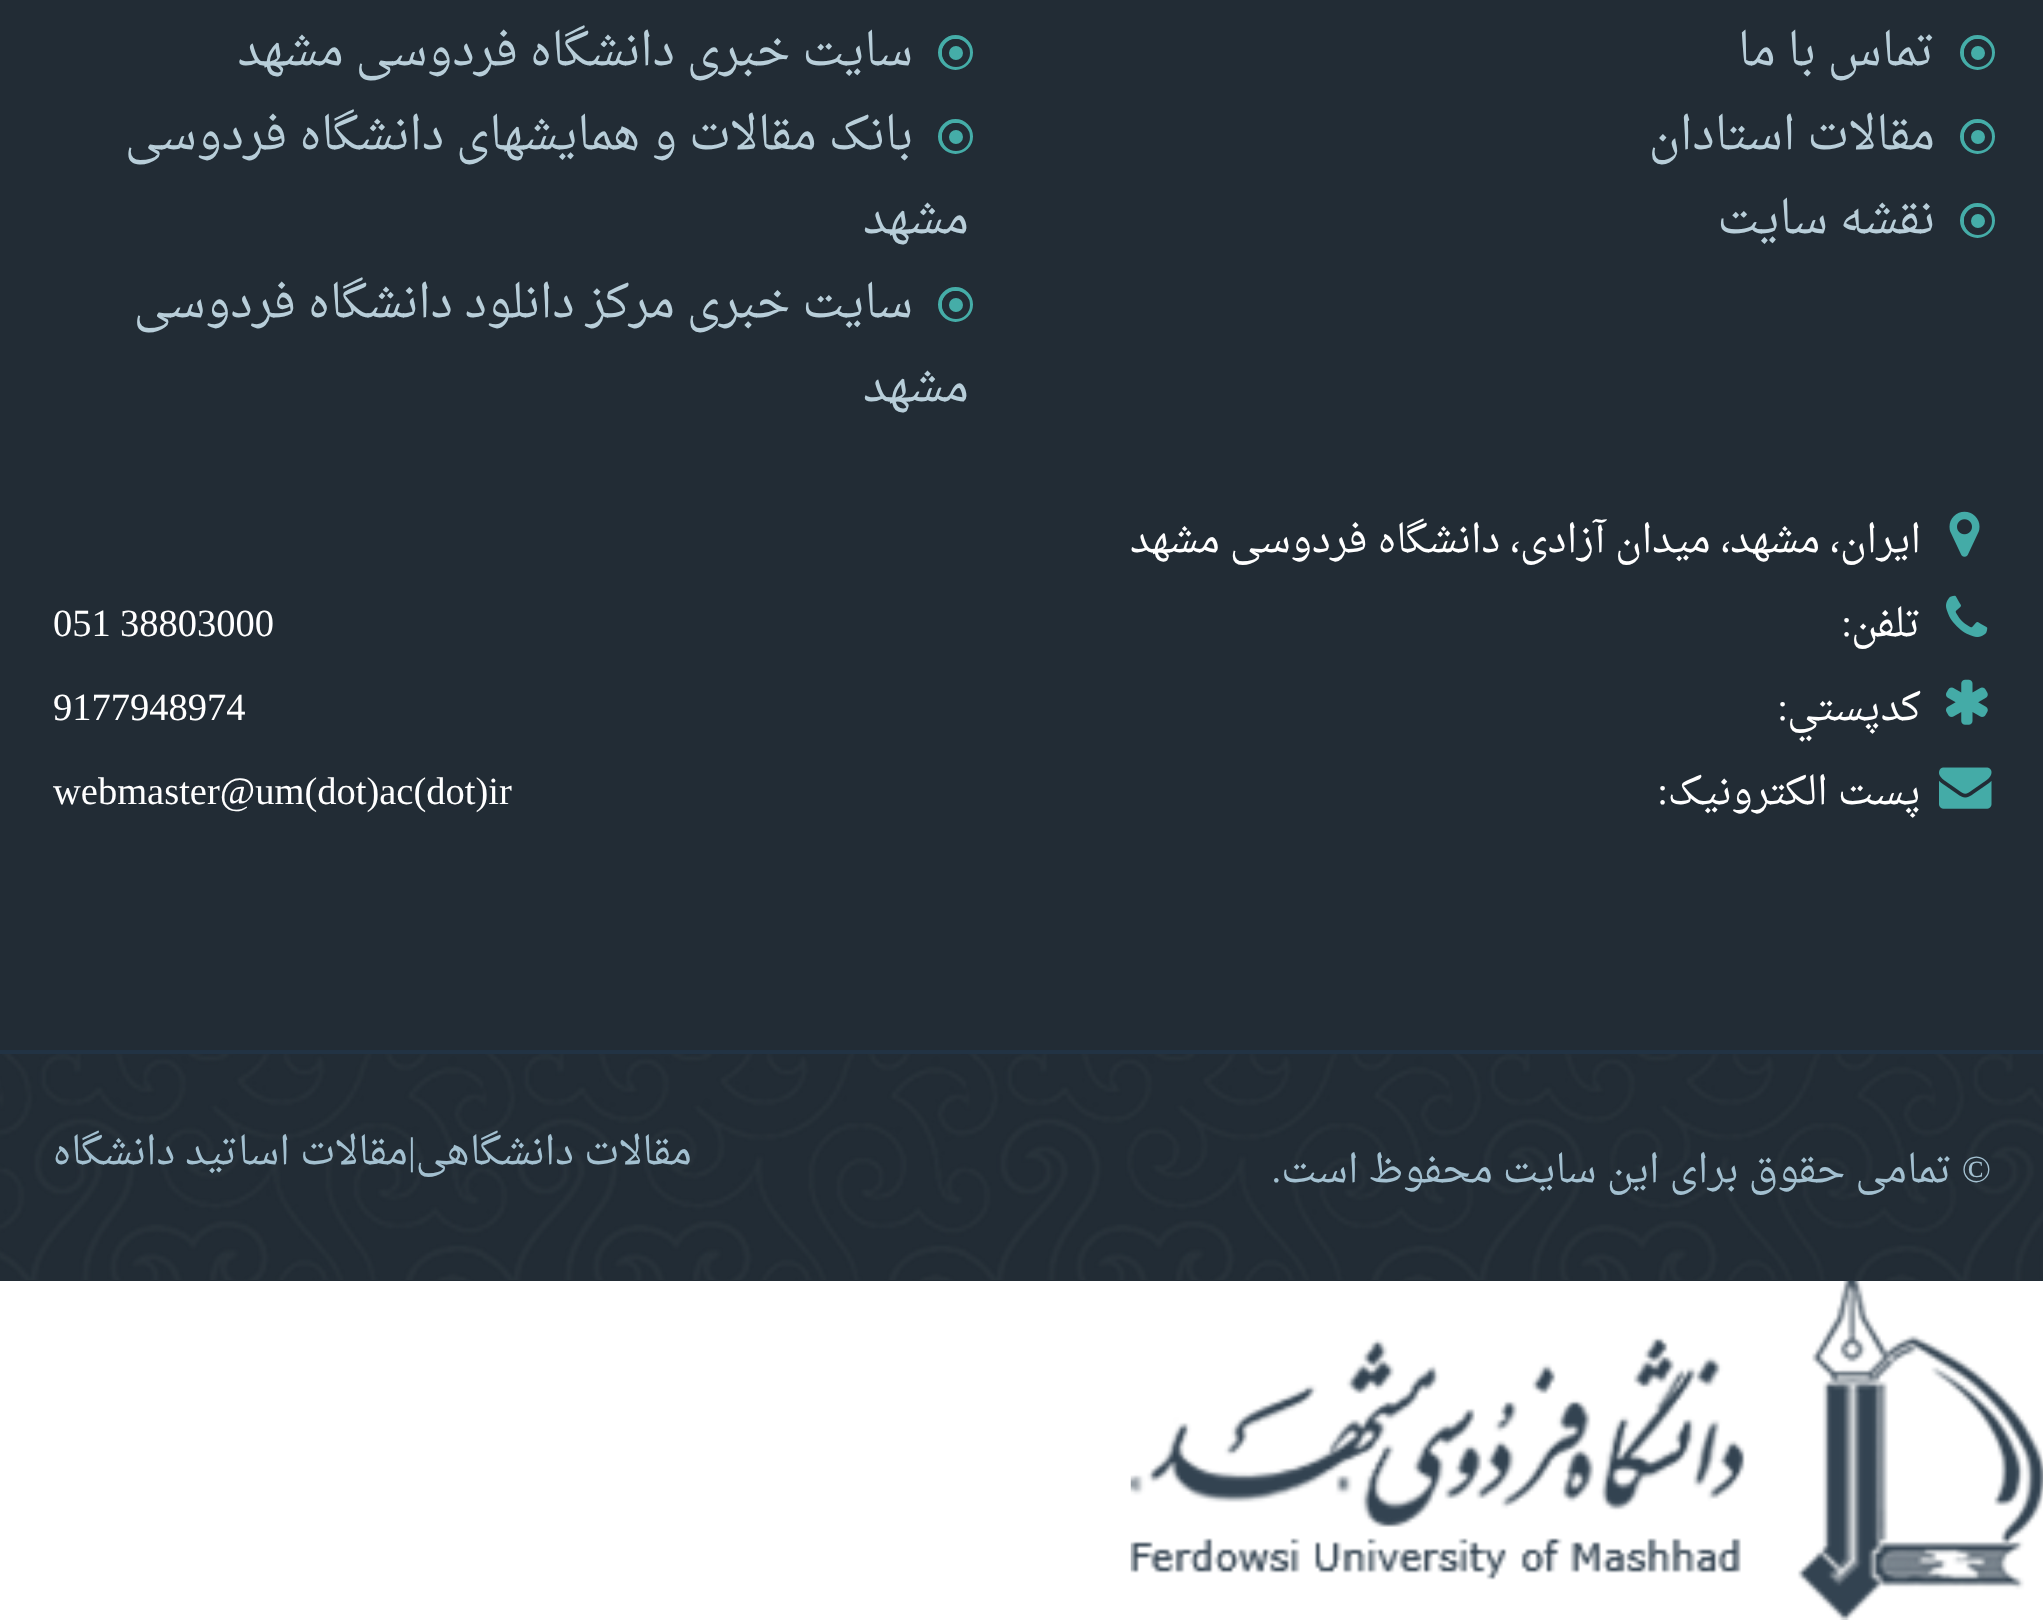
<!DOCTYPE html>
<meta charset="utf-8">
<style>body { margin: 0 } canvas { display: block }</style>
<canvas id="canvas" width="2043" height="1620"></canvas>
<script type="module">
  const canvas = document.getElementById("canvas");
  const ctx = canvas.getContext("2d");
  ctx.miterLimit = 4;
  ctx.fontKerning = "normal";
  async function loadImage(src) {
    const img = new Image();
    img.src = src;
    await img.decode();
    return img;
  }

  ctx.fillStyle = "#ffffff";
  ctx.fillRect(0, 0, 2043, 1620);
  ctx.fillStyle = "#222c35";
  ctx.fillRect(0, 0, 2043, 1281);
  ctx.beginPath();
  ctx.arc(1977.5, 52.5, 15.5, 0, Math.PI * 2);
  ctx.strokeStyle = "#45ada8";
  ctx.lineWidth = 4;
  ctx.stroke();
  ctx.fillStyle = "#45ada8";
  ctx.beginPath();
  ctx.arc(1978, 53, 10.5, 0, Math.PI * 2);
  ctx.fill();
  ctx.strokeStyle = "#222c35";
  ctx.lineWidth = 7;
  ctx.stroke();
  ctx.direction = "rtl";
  ctx.font = "45.5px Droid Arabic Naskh";
  ctx.fillStyle = "#b8ced9";
  ctx.fillText("تماس با ما", 1935, 65);
  ctx.beginPath();
  ctx.arc(1977.5, 136.5, 15.5, 0, Math.PI * 2);
  ctx.strokeStyle = "#45ada8";
  ctx.lineWidth = 4;
  ctx.stroke();
  ctx.fillStyle = "#45ada8";
  ctx.beginPath();
  ctx.arc(1978, 137, 10.5, 0, Math.PI * 2);
  ctx.fill();
  ctx.strokeStyle = "#222c35";
  ctx.lineWidth = 7;
  ctx.stroke();
  ctx.fillStyle = "#b8ced9";
  ctx.fillText("مقالات استادان", 1935, 149);
  ctx.beginPath();
  ctx.arc(1977.5, 220.5, 15.5, 0, Math.PI * 2);
  ctx.strokeStyle = "#45ada8";
  ctx.lineWidth = 4;
  ctx.stroke();
  ctx.fillStyle = "#45ada8";
  ctx.beginPath();
  ctx.arc(1978, 221, 10.5, 0, Math.PI * 2);
  ctx.fill();
  ctx.strokeStyle = "#222c35";
  ctx.lineWidth = 7;
  ctx.stroke();
  ctx.fillStyle = "#b8ced9";
  ctx.fillText("نقشه سایت", 1935, 233);
  ctx.beginPath();
  ctx.arc(955.5, 52.5, 15.5, 0, Math.PI * 2);
  ctx.strokeStyle = "#45ada8";
  ctx.lineWidth = 4;
  ctx.stroke();
  ctx.fillStyle = "#45ada8";
  ctx.beginPath();
  ctx.arc(956, 53, 10.5, 0, Math.PI * 2);
  ctx.fill();
  ctx.strokeStyle = "#222c35";
  ctx.lineWidth = 7;
  ctx.stroke();
  ctx.fillStyle = "#b8ced9";
  ctx.fillText("سایت خبری دانشگاه فردوسی مشهد", 913, 65);
  ctx.beginPath();
  ctx.arc(955.5, 136.5, 15.5, 0, Math.PI * 2);
  ctx.strokeStyle = "#45ada8";
  ctx.lineWidth = 4;
  ctx.stroke();
  ctx.fillStyle = "#45ada8";
  ctx.beginPath();
  ctx.arc(956, 137, 10.5, 0, Math.PI * 2);
  ctx.fill();
  ctx.strokeStyle = "#222c35";
  ctx.lineWidth = 7;
  ctx.stroke();
  ctx.fillStyle = "#b8ced9";
  ctx.fillText("بانک مقالات و همایشهای دانشگاه فردوسی", 913, 149);
  ctx.fillText("مشهد", 969, 233);
  ctx.beginPath();
  ctx.arc(955.5, 304.5, 15.5, 0, Math.PI * 2);
  ctx.strokeStyle = "#45ada8";
  ctx.lineWidth = 4;
  ctx.stroke();
  ctx.fillStyle = "#45ada8";
  ctx.beginPath();
  ctx.arc(956, 305, 10.5, 0, Math.PI * 2);
  ctx.fill();
  ctx.strokeStyle = "#222c35";
  ctx.lineWidth = 7;
  ctx.stroke();
  ctx.fillStyle = "#b8ced9";
  ctx.fillText("سایت خبری مرکز دانلود دانشگاه فردوسی", 913, 317);
  ctx.fillText("مشهد", 969, 401);
  ctx.drawImage(await loadImage("img1.png"), 1949, 511, 31, 46);
  ctx.font = "38.5px Droid Arabic Naskh";
  ctx.fillStyle = "#ffffff";
  ctx.fillText("ايران، مشهد، ميدان آزادی، دانشگاه فردوسی مشهد", 1921, 552);
  ctx.drawImage(await loadImage("img2.png"), 1946, 595, 42, 42);
  ctx.fillText("تلفن", 1921, 636);
  ctx.font = "38.5px Liberation Serif";
  ctx.fillText(":", 1852, 636);
  ctx.direction = "ltr";
  ctx.fillText("38803000", 120, 636);
  ctx.fillText("051", 53, 636);
  ctx.drawImage(await loadImage("img3.png"), 1946, 679, 42, 46);
  ctx.direction = "rtl";
  ctx.font = "38.5px Droid Arabic Naskh";
  ctx.fillText("كدپستي", 1921, 720);
  ctx.font = "38.5px Liberation Serif";
  ctx.fillText(":", 1788, 720);
  ctx.direction = "ltr";
  ctx.fillText("9177948974", 53, 720);
  ctx.drawImage(await loadImage("img4.png"), 1939, 767, 53, 42);
  ctx.direction = "rtl";
  ctx.font = "38.5px Droid Arabic Naskh";
  ctx.fillText("پست الکترونیک", 1921, 804);
  ctx.font = "38.5px Liberation Serif";
  ctx.fillText(":", 1668, 804);
  ctx.direction = "ltr";
  ctx.fillText("webmaster@um(dot)ac(dot)ir", 53, 804);
  ctx.drawImage(await loadImage("img5.png"), 0, 1054, 2043, 226);
  ctx.fillStyle = "#223344";
  ctx.fillRect(0, 1050, 2043, 4);
  ctx.direction = "rtl";
  ctx.fillStyle = "#a3c0d0";
  ctx.fillText("©", 1991, 1182);
  ctx.font = "38.5px Droid Arabic Naskh";
  ctx.fillText("تمامی حقوق برای این سایت محفوظ است", 1952, 1182);
  ctx.font = "38.5px Liberation Serif";
  ctx.fillText(".", 1281, 1182);
  ctx.font = "38.5px Droid Arabic Naskh";
  ctx.fillText("مقالات دانشگاهی", 692, 1164);
  ctx.direction = "ltr";
  ctx.font = "38.5px Liberation Serif";
  ctx.fillText("|", 408, 1164);
  ctx.direction = "rtl";
  ctx.font = "38.5px Droid Arabic Naskh";
  ctx.fillText("مقالات اساتید دانشگاه", 408, 1164);
  ctx.drawImage(await loadImage("img6.png"), 1130, 1280, 913, 340);
</script>
